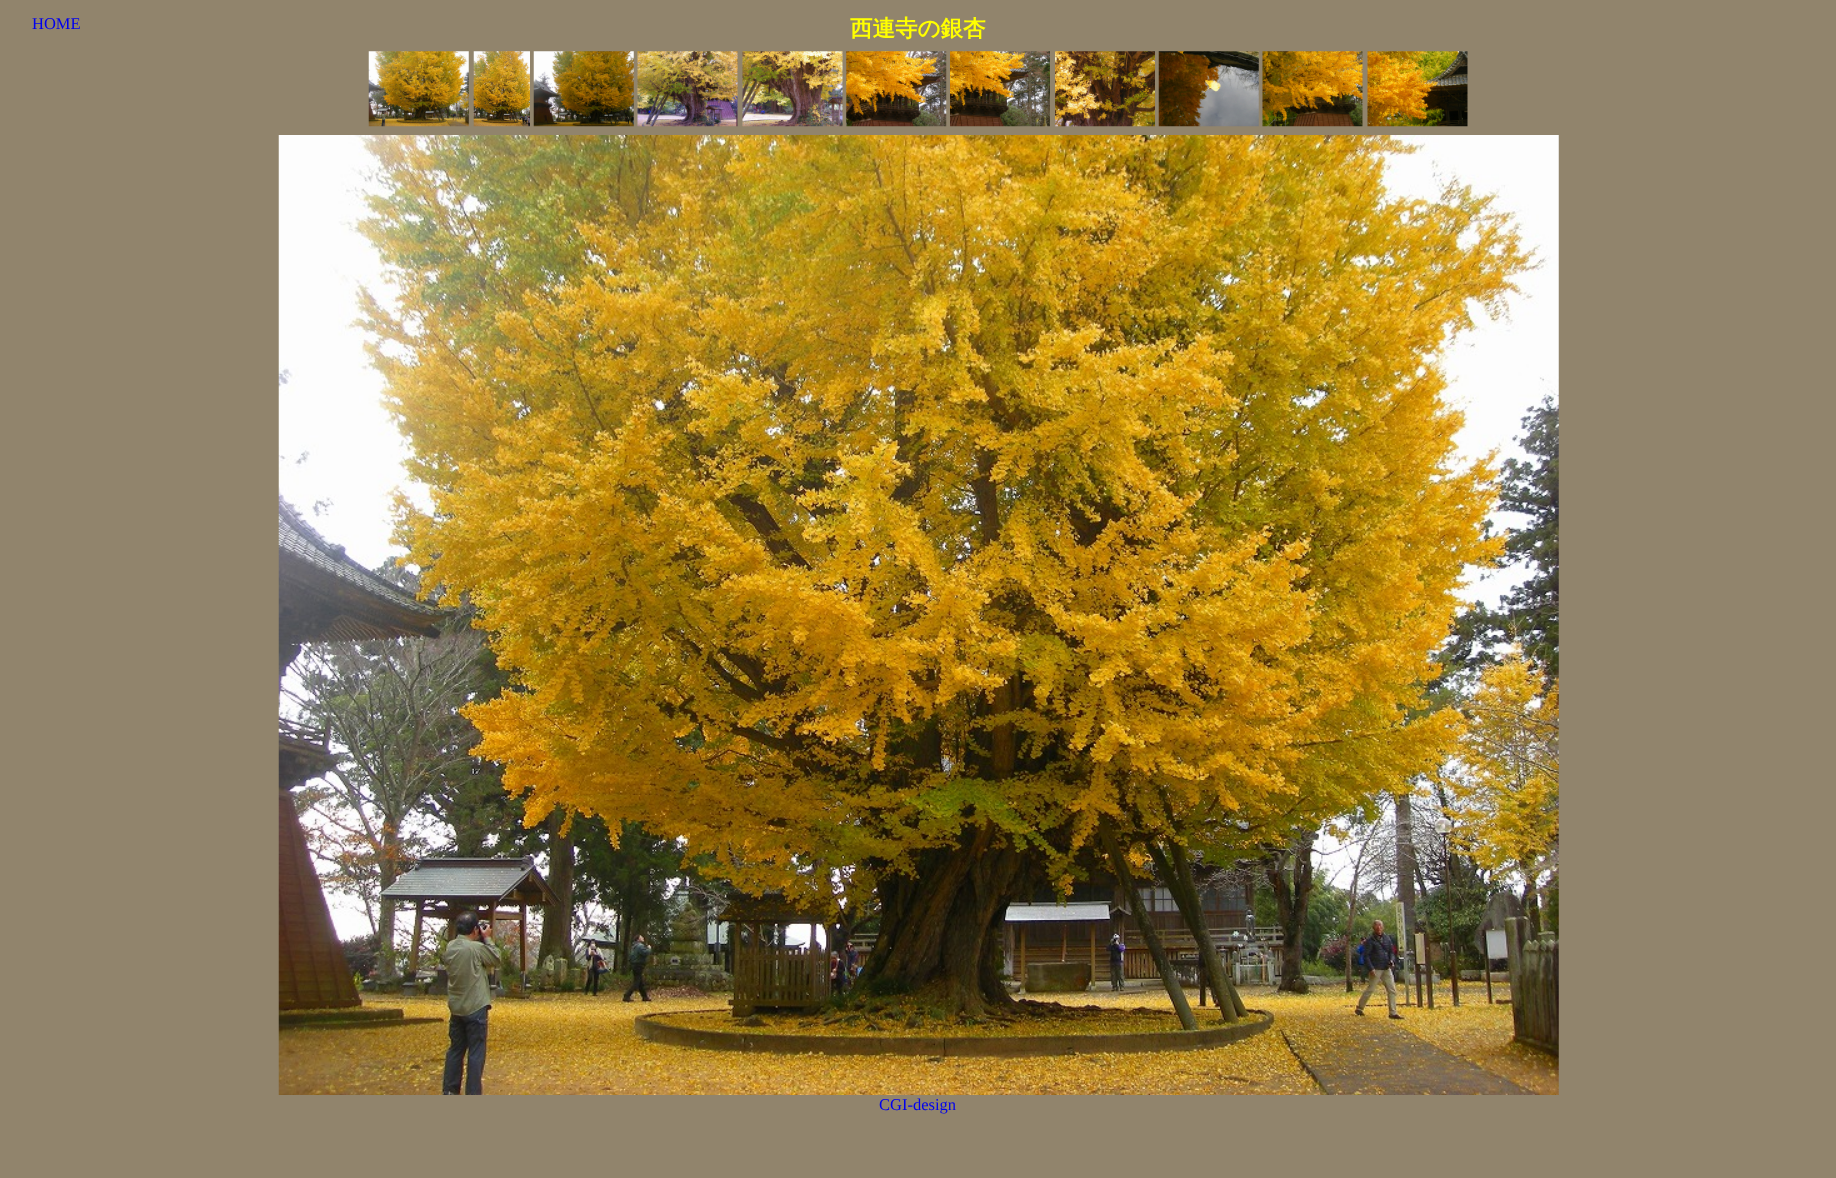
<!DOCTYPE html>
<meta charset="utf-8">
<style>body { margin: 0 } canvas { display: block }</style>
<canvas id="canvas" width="1836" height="1178"></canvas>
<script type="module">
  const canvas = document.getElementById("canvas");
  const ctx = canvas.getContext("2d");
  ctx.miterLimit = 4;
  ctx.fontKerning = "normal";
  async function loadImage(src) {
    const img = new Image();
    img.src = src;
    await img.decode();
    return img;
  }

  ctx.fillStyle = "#91846c";
  ctx.fillRect(0, 0, 1836, 1178);
  ctx.font = "16.5px Liberation Serif";
  ctx.fillStyle = "#0000ee";
  ctx.fillText("HOME", 32, 29);
  ctx.font = "bold 22.5px WenQuanYi Zen Hei";
  ctx.fillStyle = "#ffff00";
  ctx.fillText("西連寺の銀杏", 850, 36);
  ctx.drawImage(await loadImage("img1.png"), 368, 51, 101, 76);
  ctx.drawImage(await loadImage("img2.png"), 473, 51, 57, 76);
  ctx.drawImage(await loadImage("img3.png"), 533, 51, 101, 76);
  ctx.drawImage(await loadImage("img4.png"), 637, 51, 101, 76);
  ctx.drawImage(await loadImage("img5.png"), 742, 51, 101, 76);
  ctx.drawImage(await loadImage("img6.png"), 846, 51, 101, 76);
  ctx.drawImage(await loadImage("img7.png"), 950, 51, 100, 76);
  ctx.drawImage(await loadImage("img8.png"), 1055, 51, 100, 76);
  ctx.drawImage(await loadImage("img9.png"), 1158, 51, 101, 76);
  ctx.drawImage(await loadImage("img10.png"), 1262, 51, 101, 76);
  ctx.drawImage(await loadImage("img11.png"), 1367, 51, 101, 76);
  ctx.drawImage(await loadImage("img12.png"), 278, 135, 1281, 960);
  ctx.font = "16.5px Liberation Serif";
  ctx.fillStyle = "#0000ee";
  ctx.fillText("CGI-design", 879, 1110);
</script>
